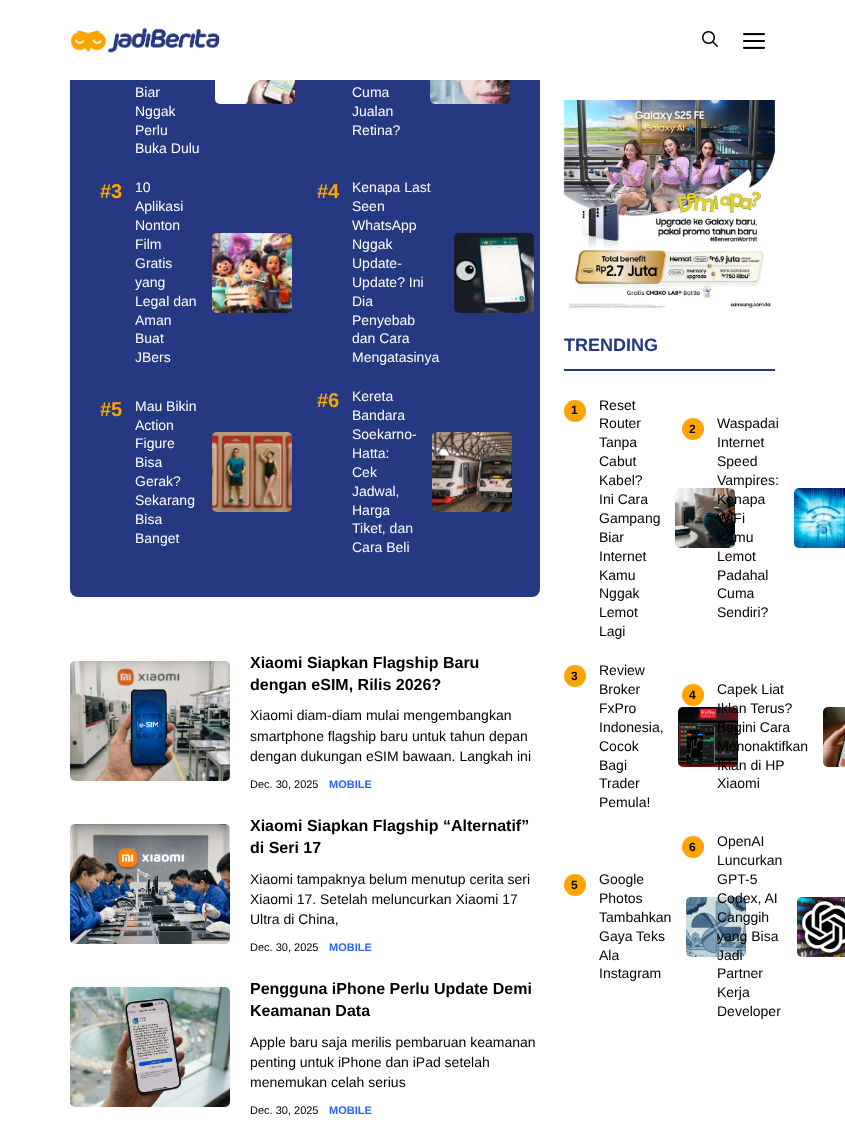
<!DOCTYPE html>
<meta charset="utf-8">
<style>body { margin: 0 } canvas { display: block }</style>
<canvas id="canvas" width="845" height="1132"></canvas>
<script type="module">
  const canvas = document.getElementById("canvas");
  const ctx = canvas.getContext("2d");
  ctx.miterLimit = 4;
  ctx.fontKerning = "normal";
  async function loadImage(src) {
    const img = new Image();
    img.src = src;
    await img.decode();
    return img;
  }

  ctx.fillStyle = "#ffffff";
  ctx.fillRect(0, 0, 845, 1132);
  ctx.fillStyle = "#263881";
  ctx.beginPath();
  ctx.roundRect(70, -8, 470, 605, 8);
  ctx.fill();
  ctx.fillStyle = "#ffffff";
  ctx.fillRect(70, 0, 470, 80);
  ctx.drawImage(await loadImage("img1.png"), 70, 27, 150, 26);
  ctx.drawImage(await loadImage("img2.png"), 702, 31, 16, 16);
  ctx.drawImage(await loadImage("img3.png"), 743, 33, 22, 16);
  ctx.font = "14px Liberation Sans";
  ctx.fillText("Biar", 135, 97);
  ctx.fillText("Nggak", 135, 116);
  ctx.fillText("Perlu", 135, 135);
  ctx.fillText("Buka Dulu", 135, 153);
  ctx.drawImage(await loadImage("img4.png"), 215, 80, 80, 24);
  ctx.fillText("Cuma", 352, 97);
  ctx.fillText("Jualan", 352, 116);
  ctx.fillText("Retina?", 352, 135);
  ctx.drawImage(await loadImage("img5.png"), 430, 80, 80, 24);
  ctx.font = "bold 20px Liberation Sans";
  ctx.fillStyle = "#ffa402";
  ctx.fillText("#3", 100, 198);
  ctx.font = "14px Liberation Sans";
  ctx.fillStyle = "#ffffff";
  ctx.fillText("10", 135, 192);
  ctx.fillText("Aplikasi", 135, 211);
  ctx.fillText("Nonton", 135, 230);
  ctx.fillText("Film", 135, 249);
  ctx.fillText("Gratis", 135, 268);
  ctx.fillText("yang", 135, 287);
  ctx.fillText("Legal dan", 135, 306);
  ctx.fillText("Aman", 135, 325);
  ctx.fillText("Buat", 135, 343);
  ctx.fillText("JBers", 135, 362);
  ctx.drawImage(await loadImage("img6.png"), 212, 233, 80, 80);
  ctx.font = "bold 20px Liberation Sans";
  ctx.fillStyle = "#ffa402";
  ctx.fillText("#4", 317, 198);
  ctx.font = "14px Liberation Sans";
  ctx.fillStyle = "#ffffff";
  ctx.fillText("Kenapa Last", 352, 192);
  ctx.fillText("Seen", 352, 211);
  ctx.fillText("WhatsApp", 352, 230);
  ctx.fillText("Nggak", 352, 249);
  ctx.fillText("Update-", 352, 268);
  ctx.fillText("Update? Ini", 352, 287);
  ctx.fillText("Dia", 352, 306);
  ctx.fillText("Penyebab", 352, 325);
  ctx.fillText("dan Cara", 352, 343);
  ctx.fillText("Mengatasinya", 352, 362);
  ctx.drawImage(await loadImage("img7.png"), 454, 233, 80, 80);
  ctx.font = "bold 20px Liberation Sans";
  ctx.fillStyle = "#ffa402";
  ctx.fillText("#5", 100, 416);
  ctx.font = "14px Liberation Sans";
  ctx.fillStyle = "#ffffff";
  ctx.fillText("Mau Bikin", 135, 411);
  ctx.fillText("Action", 135, 430);
  ctx.fillText("Figure", 135, 448);
  ctx.fillText("Bisa", 135, 467);
  ctx.fillText("Gerak?", 135, 486);
  ctx.fillText("Sekarang", 135, 505);
  ctx.fillText("Bisa", 135, 524);
  ctx.fillText("Banget", 135, 543);
  ctx.drawImage(await loadImage("img8.png"), 212, 432, 80, 80);
  ctx.font = "bold 20px Liberation Sans";
  ctx.fillStyle = "#ffa402";
  ctx.fillText("#6", 317, 407);
  ctx.font = "14px Liberation Sans";
  ctx.fillStyle = "#ffffff";
  ctx.fillText("Kereta", 352, 401);
  ctx.fillText("Bandara", 352, 420);
  ctx.fillText("Soekarno-", 352, 439);
  ctx.fillText("Hatta:", 352, 458);
  ctx.fillText("Cek", 352, 477);
  ctx.fillText("Jadwal,", 352, 496);
  ctx.fillText("Harga", 352, 515);
  ctx.fillText("Tiket, dan", 352, 533);
  ctx.fillText("Cara Beli", 352, 552);
  ctx.drawImage(await loadImage("img9.png"), 432, 432, 80, 80);
  ctx.drawImage(await loadImage("img10.png"), 70, 661, 160, 120);
  ctx.font = "bold 16px Liberation Sans";
  ctx.fillStyle = "#000000";
  ctx.fillText("Xiaomi Siapkan Flagship Baru", 250, 668);
  ctx.fillText("dengan eSIM, Rilis 2026?", 250, 690);
  ctx.font = "14px Liberation Sans";
  ctx.fillText("Xiaomi diam-diam mulai mengembangkan", 250, 720);
  ctx.fillText("smartphone flagship baru untuk tahun depan", 250, 741);
  ctx.fillText("dengan dukungan eSIM bawaan. Langkah ini", 250, 761);
  ctx.font = "11px Liberation Sans";
  ctx.fillText("Dec. 30, 2025", 250, 788);
  ctx.font = "bold 11px Liberation Sans";
  ctx.fillStyle = "#2b64f6";
  ctx.fillText("MOBILE", 329, 788);
  ctx.drawImage(await loadImage("img11.png"), 70, 824, 160, 120);
  ctx.font = "bold 16px Liberation Sans";
  ctx.fillStyle = "#000000";
  ctx.fillText("Xiaomi Siapkan Flagship “Alternatif”", 250, 831);
  ctx.fillText("di Seri 17", 250, 853);
  ctx.font = "14px Liberation Sans";
  ctx.fillText("Xiaomi tampaknya belum menutup cerita seri", 250, 884);
  ctx.fillText("Xiaomi 17. Setelah meluncurkan Xiaomi 17", 250, 904);
  ctx.fillText("Ultra di China,", 250, 924);
  ctx.font = "11px Liberation Sans";
  ctx.fillText("Dec. 30, 2025", 250, 951);
  ctx.font = "bold 11px Liberation Sans";
  ctx.fillStyle = "#2b64f6";
  ctx.fillText("MOBILE", 329, 951);
  ctx.drawImage(await loadImage("img12.png"), 70, 987, 160, 120);
  ctx.font = "bold 16px Liberation Sans";
  ctx.fillStyle = "#000000";
  ctx.fillText("Pengguna iPhone Perlu Update Demi", 250, 994);
  ctx.fillText("Keamanan Data", 250, 1016);
  ctx.font = "14px Liberation Sans";
  ctx.fillText("Apple baru saja merilis pembaruan keamanan", 250, 1047);
  ctx.fillText("penting untuk iPhone dan iPad setelah", 250, 1067);
  ctx.fillText("menemukan celah serius", 250, 1087);
  ctx.font = "11px Liberation Sans";
  ctx.fillText("Dec. 30, 2025", 250, 1114);
  ctx.font = "bold 11px Liberation Sans";
  ctx.fillStyle = "#2b64f6";
  ctx.fillText("MOBILE", 329, 1114);
  ctx.drawImage(await loadImage("img13.png"), 563, 100, 212, 209);
  ctx.fillStyle = "#263881";
  ctx.fillRect(564, 369, 211, 2);
  ctx.font = "bold 18px Liberation Sans";
  ctx.fillText("TRENDING", 564, 351);
  ctx.fillStyle = "#ffa402";
  ctx.beginPath();
  ctx.arc(575, 411, 11, 0, Math.PI * 2);
  ctx.fill();
  ctx.font = "bold 12px Liberation Sans";
  ctx.fillStyle = "#000000";
  ctx.fillText("1", 571, 414);
  ctx.font = "14px Liberation Sans";
  ctx.fillText("Reset", 599, 410);
  ctx.fillText("Router", 599, 428);
  ctx.fillText("Tanpa", 599, 447);
  ctx.fillText("Cabut", 599, 466);
  ctx.fillText("Kabel?", 599, 485);
  ctx.fillText("Ini Cara", 599, 504);
  ctx.fillText("Gampang", 599, 523);
  ctx.fillText("Biar", 599, 542);
  ctx.fillText("Internet", 599, 561);
  ctx.fillText("Kamu", 599, 580);
  ctx.fillText("Nggak", 599, 598);
  ctx.fillText("Lemot", 599, 617);
  ctx.fillText("Lagi", 599, 636);
  ctx.drawImage(await loadImage("img14.png"), 675, 488, 60, 60);
  ctx.fillStyle = "#ffa402";
  ctx.beginPath();
  ctx.arc(693, 429, 11, 0, Math.PI * 2);
  ctx.fill();
  ctx.font = "bold 12px Liberation Sans";
  ctx.fillStyle = "#000000";
  ctx.fillText("2", 689, 433);
  ctx.font = "14px Liberation Sans";
  ctx.fillText("Waspadai", 717, 428);
  ctx.fillText("Internet", 717, 447);
  ctx.fillText("Speed", 717, 466);
  ctx.fillText("Vampires:", 717, 485);
  ctx.fillText("Kenapa", 717, 504);
  ctx.fillText("WiFi", 717, 523);
  ctx.fillText("Kamu", 717, 542);
  ctx.fillText("Lemot", 717, 561);
  ctx.fillText("Padahal", 717, 580);
  ctx.fillText("Cuma", 717, 598);
  ctx.fillText("Sendiri?", 717, 617);
  ctx.drawImage(await loadImage("img15.png"), 794, 488, 51, 60);
  ctx.fillStyle = "#ffa402";
  ctx.beginPath();
  ctx.arc(575, 676, 11, 0, Math.PI * 2);
  ctx.fill();
  ctx.font = "bold 12px Liberation Sans";
  ctx.fillStyle = "#000000";
  ctx.fillText("3", 571, 680);
  ctx.font = "14px Liberation Sans";
  ctx.fillText("Review", 599, 675);
  ctx.fillText("Broker", 599, 694);
  ctx.fillText("FxPro", 599, 713);
  ctx.fillText("Indonesia,", 599, 732);
  ctx.fillText("Cocok", 599, 751);
  ctx.fillText("Bagi", 599, 770);
  ctx.fillText("Trader", 599, 788);
  ctx.fillText("Pemula!", 599, 807);
  ctx.drawImage(await loadImage("img16.png"), 678, 707, 60, 60);
  ctx.fillStyle = "#ffa402";
  ctx.beginPath();
  ctx.arc(693, 695, 11, 0, Math.PI * 2);
  ctx.fill();
  ctx.font = "bold 12px Liberation Sans";
  ctx.fillStyle = "#000000";
  ctx.fillText("4", 689, 699);
  ctx.font = "14px Liberation Sans";
  ctx.fillText("Capek Liat", 717, 694);
  ctx.fillText("Iklan Terus?", 717, 713);
  ctx.fillText("Begini Cara", 717, 732);
  ctx.fillText("Menonaktifkan", 717, 751);
  ctx.fillText("Iklan di HP", 717, 770);
  ctx.fillText("Xiaomi", 717, 788);
  ctx.drawImage(await loadImage("img17.png"), 823, 707, 22, 60);
  ctx.fillStyle = "#ffa402";
  ctx.beginPath();
  ctx.arc(575, 885, 11, 0, Math.PI * 2);
  ctx.fill();
  ctx.font = "bold 12px Liberation Sans";
  ctx.fillStyle = "#000000";
  ctx.fillText("5", 571, 889);
  ctx.font = "14px Liberation Sans";
  ctx.fillText("Google", 599, 884);
  ctx.fillText("Photos", 599, 903);
  ctx.fillText("Tambahkan", 599, 922);
  ctx.fillText("Gaya Teks", 599, 941);
  ctx.fillText("Ala", 599, 960);
  ctx.fillText("Instagram", 599, 978);
  ctx.drawImage(await loadImage("img18.png"), 686, 897, 60, 60);
  ctx.fillStyle = "#ffa402";
  ctx.beginPath();
  ctx.arc(693, 847, 11, 0, Math.PI * 2);
  ctx.fill();
  ctx.font = "bold 12px Liberation Sans";
  ctx.fillStyle = "#000000";
  ctx.fillText("6", 689, 851);
  ctx.font = "14px Liberation Sans";
  ctx.fillText("OpenAI", 717, 846);
  ctx.fillText("Luncurkan", 717, 865);
  ctx.fillText("GPT-5", 717, 884);
  ctx.fillText("Codex, AI", 717, 903);
  ctx.fillText("Canggih", 717, 922);
  ctx.fillText("yang Bisa", 717, 941);
  ctx.fillText("Jadi", 717, 960);
  ctx.fillText("Partner", 717, 978);
  ctx.fillText("Kerja", 717, 997);
  ctx.fillText("Developer", 717, 1016);
  ctx.drawImage(await loadImage("img19.png"), 797, 897, 48, 60);
</script>
